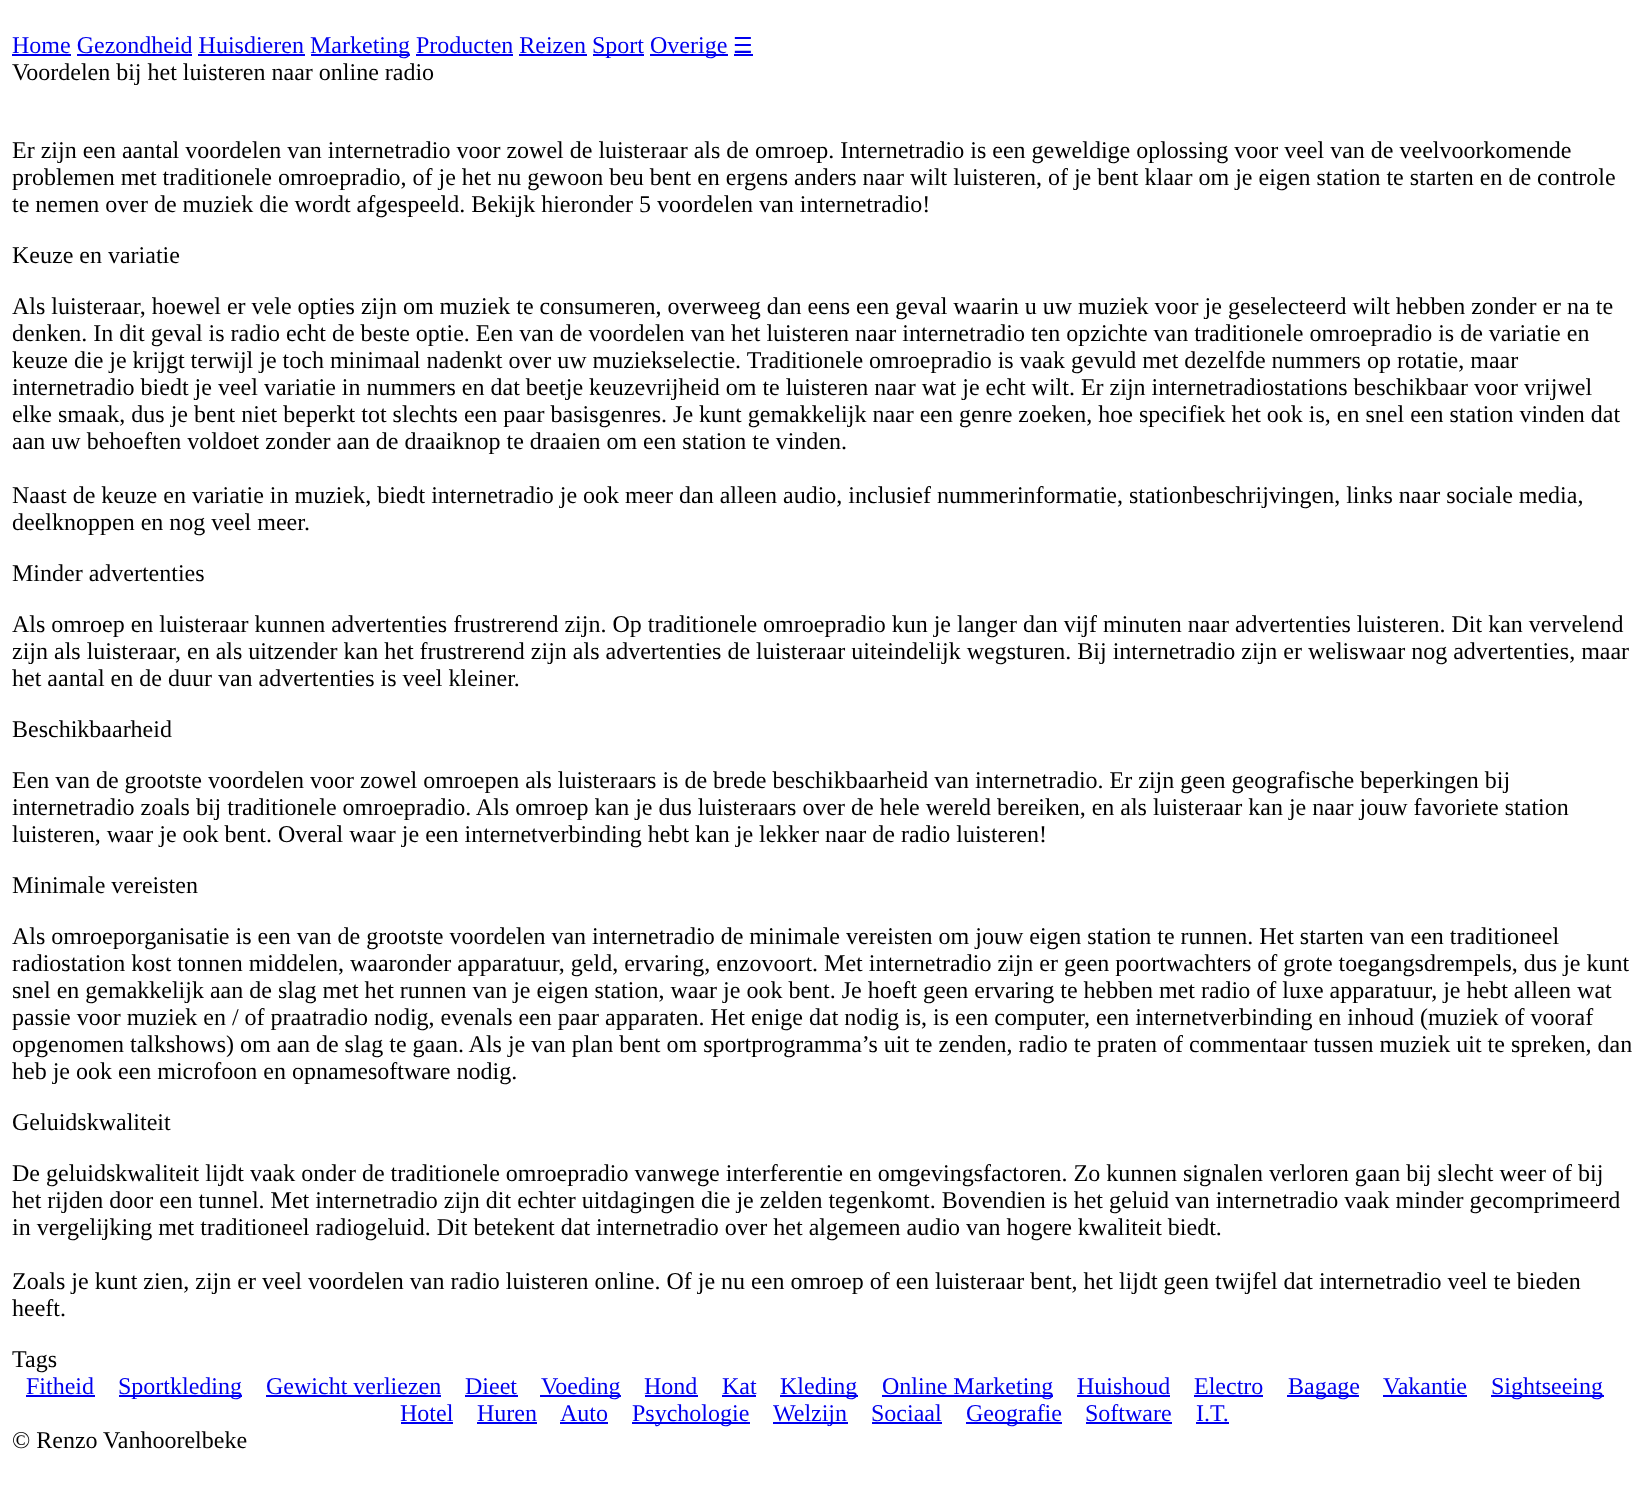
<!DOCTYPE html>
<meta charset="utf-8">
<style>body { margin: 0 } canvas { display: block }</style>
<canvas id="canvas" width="1647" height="1492"></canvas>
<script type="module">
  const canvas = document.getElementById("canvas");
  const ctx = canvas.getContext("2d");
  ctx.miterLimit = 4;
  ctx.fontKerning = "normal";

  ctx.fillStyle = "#ffffff";
  ctx.fillRect(0, 0, 1647, 1492);
  ctx.font = "24px Liberation Serif";
  ctx.fillStyle = "#0000ee";
  ctx.fillText("Home Gezondheid Huisdieren", 12, 53);
  ctx.fillRect(12, 54, 59, 2);
  ctx.fillRect(311, 54, 99, 2);
  ctx.fillText("Marketing Producten Reizen", 310, 53);
  ctx.fillRect(593, 54, 51, 2);
  ctx.fillText("Sport", 592, 53);
  ctx.fillRect(650, 54, 78, 2);
  ctx.fillText("Overige", 650, 53);
  ctx.font = "22px DejaVu Sans";
  ctx.fillText("☰", 733, 53);
  ctx.fillRect(734, 54, 19, 2);
  ctx.fillRect(77, 54, 115, 2);
  ctx.fillRect(198, 54, 107, 2);
  ctx.fillRect(416, 54, 97, 2);
  ctx.fillRect(519, 54, 68, 2);
  ctx.font = "24px Liberation Serif";
  ctx.fillStyle = "#000000";
  ctx.fillText("Voordelen bij het luisteren naar online radio", 12, 80);
  ctx.fillText("Er zijn een aantal voordelen van internetradio voor zowel de luisteraar als de omroep. Internetradio is een geweldige oplossing voor veel van de veelvoorkomende", 12, 158);
  ctx.fillText("problemen met traditionele omroepradio, of je het nu gewoon beu bent en ergens anders naar wilt luisteren, of je bent klaar om je eigen station te starten en de controle", 12, 185);
  ctx.fillText("te nemen over de muziek die wordt afgespeeld. Bekijk hieronder 5 voordelen van internetradio!", 12, 212);
  ctx.fillText("Keuze en variatie", 12, 263);
  ctx.fillText("Als luisteraar, hoewel er vele opties zijn om muziek te consumeren, overweeg dan eens een geval waarin u uw muziek voor je geselecteerd wilt hebben zonder er na te", 12, 314);
  ctx.fillText("denken. In dit geval is radio echt de beste optie. Een van de voordelen van het luisteren naar internetradio ten opzichte van traditionele omroepradio is de variatie en", 12, 341);
  ctx.fillText("keuze die je krijgt terwijl je toch minimaal nadenkt over uw muziekselectie. Traditionele omroepradio is vaak gevuld met dezelfde nummers op rotatie, maar", 12, 368);
  ctx.fillText("internetradio biedt je veel variatie in nummers en dat beetje keuzevrijheid om te luisteren naar wat je echt wilt. Er zijn internetradiostations beschikbaar voor vrijwel", 12, 395);
  ctx.fillText("elke smaak, dus je bent niet beperkt tot slechts een paar basisgenres. Je kunt gemakkelijk naar een genre zoeken, hoe specifiek het ook is, en snel een station vinden dat", 12, 422);
  ctx.fillText("aan uw behoeften voldoet zonder aan de draaiknop te draaien om een station te vinden.", 12, 449);
  ctx.fillText("Naast de keuze en variatie in muziek, biedt internetradio je ook meer dan alleen audio, inclusief nummerinformatie, stationbeschrijvingen, links naar sociale media,", 12, 503);
  ctx.fillText("deelknoppen en nog veel meer.", 12, 530);
  ctx.fillText("Minder advertenties", 12, 581);
  ctx.fillText("Als omroep en luisteraar kunnen advertenties frustrerend zijn. Op traditionele omroepradio kun je langer dan vijf minuten naar advertenties luisteren. Dit kan vervelend", 12, 632);
  ctx.fillText("zijn als luisteraar, en als uitzender kan het frustrerend zijn als advertenties de luisteraar uiteindelijk wegsturen. Bij internetradio zijn er weliswaar nog advertenties, maar", 12, 659);
  ctx.fillText("het aantal en de duur van advertenties is veel kleiner.", 12, 686);
  ctx.fillText("Beschikbaarheid", 12, 737);
  ctx.fillText("Een van de grootste voordelen voor zowel omroepen als luisteraars is de brede beschikbaarheid van internetradio. Er zijn geen geografische beperkingen bij", 12, 788);
  ctx.fillText("internetradio zoals bij traditionele omroepradio. Als omroep kan je dus luisteraars over de hele wereld bereiken, en als luisteraar kan je naar jouw favoriete station", 12, 815);
  ctx.fillText("luisteren, waar je ook bent. Overal waar je een internetverbinding hebt kan je lekker naar de radio luisteren!", 12, 842);
  ctx.fillText("Minimale vereisten", 12, 893);
  ctx.fillText("Als omroeporganisatie is een van de grootste voordelen van internetradio de minimale vereisten om jouw eigen station te runnen. Het starten van een traditioneel", 12, 944);
  ctx.fillText("radiostation kost tonnen middelen, waaronder apparatuur, geld, ervaring, enzovoort. Met internetradio zijn er geen poortwachters of grote toegangsdrempels, dus je kunt", 12, 971);
  ctx.fillText("snel en gemakkelijk aan de slag met het runnen van je eigen station, waar je ook bent. Je hoeft geen ervaring te hebben met radio of luxe apparatuur, je hebt alleen wat", 12, 998);
  ctx.fillText("passie voor muziek en / of praatradio nodig, evenals een paar apparaten. Het enige dat nodig is, is een computer, een internetverbinding en inhoud (muziek of vooraf", 12, 1025);
  ctx.fillText("opgenomen talkshows) om aan de slag te gaan. Als je van plan bent om sportprogramma’s uit te zenden, radio te praten of commentaar tussen muziek uit te spreken, dan", 12, 1052);
  ctx.fillText("heb je ook een microfoon en opnamesoftware nodig.", 12, 1079);
  ctx.fillText("Geluidskwaliteit", 12, 1130);
  ctx.fillText("De geluidskwaliteit lijdt vaak onder de traditionele omroepradio vanwege interferentie en omgevingsfactoren. Zo kunnen signalen verloren gaan bij slecht weer of bij", 12, 1181);
  ctx.fillText("het rijden door een tunnel. Met internetradio zijn dit echter uitdagingen die je zelden tegenkomt. Bovendien is het geluid van internetradio vaak minder gecomprimeerd", 12, 1208);
  ctx.fillText("in vergelijking met traditioneel radiogeluid. Dit betekent dat internetradio over het algemeen audio van hogere kwaliteit biedt.", 12, 1235);
  ctx.fillText("Zoals je kunt zien, zijn er veel voordelen van radio luisteren online. Of je nu een omroep of een luisteraar bent, het lijdt geen twijfel dat internetradio veel te bieden", 12, 1289);
  ctx.fillText("heeft.", 12, 1316);
  ctx.fillText("Tags", 12, 1367);
  ctx.fillStyle = "#0000ee";
  ctx.fillText("Fitheid", 26, 1394);
  ctx.fillRect(26, 1395, 69, 2);
  ctx.fillRect(119, 1395, 123, 2);
  ctx.fillText("Sportkleding", 118, 1394);
  ctx.fillText("Gewicht verliezen", 266, 1394);
  ctx.fillRect(266, 1395, 175, 2);
  ctx.fillText("Dieet", 465, 1394);
  ctx.fillRect(465, 1395, 53, 2);
  ctx.fillRect(540, 1395, 81, 2);
  ctx.fillText("Voeding", 541, 1394);
  ctx.fillText("Hond", 644, 1394);
  ctx.fillRect(645, 1395, 53, 2);
  ctx.fillText("Kat", 722, 1394);
  ctx.fillRect(722, 1395, 34, 2);
  ctx.fillRect(780, 1395, 78, 2);
  ctx.fillText("Kleding", 780, 1394);
  ctx.fillRect(882, 1395, 171, 2);
  ctx.fillText("Online Marketing", 882, 1394);
  ctx.fillText("Huishoud", 1077, 1394);
  ctx.fillRect(1077, 1395, 93, 2);
  ctx.fillText("Electro", 1194, 1394);
  ctx.fillRect(1194, 1395, 69, 2);
  ctx.fillRect(1287, 1395, 72, 2);
  ctx.fillText("Bagage", 1288, 1394);
  ctx.fillText("Vakantie", 1383, 1394);
  ctx.fillRect(1383, 1395, 84, 2);
  ctx.fillRect(1491, 1395, 113, 2);
  ctx.fillText("Sightseeing", 1491, 1394);
  ctx.fillText("Hotel", 400, 1421);
  ctx.fillRect(401, 1422, 52, 2);
  ctx.fillText("Huren", 477, 1421);
  ctx.fillRect(477, 1422, 60, 2);
  ctx.fillText("Auto", 560, 1421);
  ctx.fillRect(560, 1422, 48, 2);
  ctx.fillRect(632, 1422, 118, 2);
  ctx.fillText("Psychologie", 632, 1421);
  ctx.fillRect(773, 1422, 75, 2);
  ctx.fillText("Welzijn", 773, 1421);
  ctx.fillText("Sociaal", 871, 1421);
  ctx.fillRect(872, 1422, 70, 2);
  ctx.fillRect(966, 1422, 96, 2);
  ctx.fillText("Geografie", 966, 1421);
  ctx.fillText("Software", 1085, 1421);
  ctx.fillRect(1086, 1422, 86, 2);
  ctx.fillText("I.T.", 1196, 1421);
  ctx.fillRect(1196, 1422, 33, 2);
  ctx.fillStyle = "#000000";
  ctx.fillText("© Renzo Vanhoorelbeke", 12, 1448);
</script>
